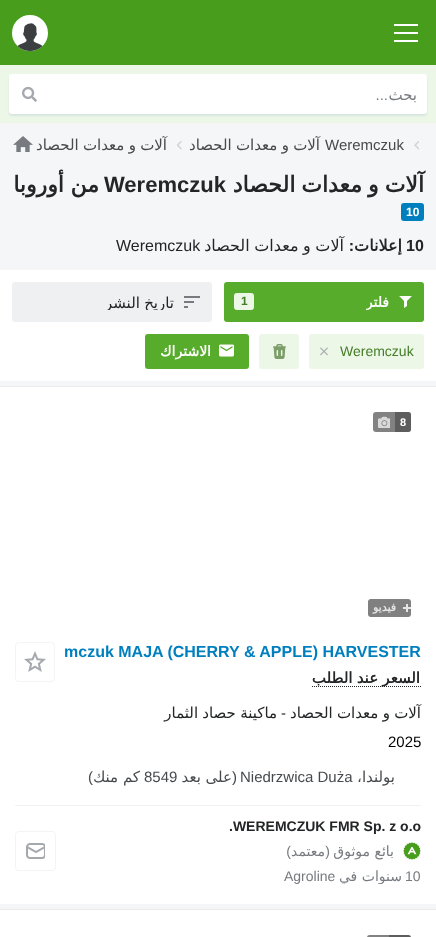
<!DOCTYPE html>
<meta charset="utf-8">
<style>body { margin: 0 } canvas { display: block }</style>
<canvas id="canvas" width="436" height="937"></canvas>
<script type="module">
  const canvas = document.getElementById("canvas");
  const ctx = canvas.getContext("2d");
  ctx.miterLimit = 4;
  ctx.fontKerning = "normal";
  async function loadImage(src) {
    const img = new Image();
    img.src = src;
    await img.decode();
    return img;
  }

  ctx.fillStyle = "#f5f6f7";
  ctx.fillRect(0, 0, 436, 937);
  ctx.fillStyle = "#489e1c";
  ctx.fillRect(0, 0, 436, 65);
  ctx.drawImage(await loadImage("img1.png"), 394, 24, 24, 18);
  ctx.fillStyle = "#ffffff";
  ctx.beginPath();
  ctx.arc(30, 33, 18, 0, Math.PI * 2);
  ctx.fill();
  ctx.drawImage(await loadImage("img2.png"), 17, 23, 26, 28);
  ctx.fillStyle = "#edf7e8";
  ctx.fillRect(0, 65, 436, 58);
  ctx.fillStyle = "rgba(23, 81, 140, 0.1)";
  ctx.filter = "blur(1px)";
  ctx.beginPath();
  ctx.roundRect(9, 76, 418, 40, 3);
  ctx.fill();
  ctx.filter = "none";
  ctx.fillStyle = "#ffffff";
  ctx.beginPath();
  ctx.roundRect(9, 74, 418, 40, 3);
  ctx.fill();
  ctx.direction = "rtl";
  ctx.font = "15px DejaVu Sans";
  ctx.fillStyle = "#777b80";
  ctx.fillText("بحث", 417, 100);
  ctx.font = "15px Liberation Sans";
  ctx.fillText("...", 388, 100);
  ctx.drawImage(await loadImage("img3.png"), 22, 86, 15, 16);
  ctx.drawImage(await loadImage("img4.png"), 414, 141, 5, 9);
  ctx.direction = "ltr";
  ctx.fillStyle = "#474a4d";
  ctx.fillText("Weremczuk", 325, 150);
  ctx.wordSpacing = "-0.5px";
  ctx.direction = "rtl";
  ctx.font = "15px DejaVu Sans";
  ctx.fillText("آلات و معدات الحصاد", 320, 150);
  ctx.drawImage(await loadImage("img5.png"), 177, 141, 5, 9);
  ctx.fillText("آلات و معدات الحصاد", 167, 150);
  ctx.drawImage(await loadImage("img6.png"), 13, 136, 20, 16);
  ctx.wordSpacing = "-1px";
  ctx.font = "bold 22px DejaVu Sans";
  ctx.fillStyle = "#232526";
  ctx.fillText("آلات و معدات الحصاد", 424, 192);
  ctx.wordSpacing = "0px";
  ctx.direction = "ltr";
  ctx.font = "bold 22px Liberation Sans";
  ctx.fillText("Weremczuk", 104, 192);
  ctx.wordSpacing = "-0.5px";
  ctx.direction = "rtl";
  ctx.font = "bold 22px DejaVu Sans";
  ctx.fillText("من أوروبا", 99, 192);
  ctx.fillStyle = "#007fbf";
  ctx.beginPath();
  ctx.roundRect(401, 203, 23, 18, 3);
  ctx.fill();
  ctx.wordSpacing = "0px";
  ctx.direction = "ltr";
  ctx.font = "bold 12px Liberation Sans";
  ctx.fillStyle = "#ffffff";
  ctx.fillText("10", 406, 216);
  ctx.font = "bold 16px Liberation Sans";
  ctx.fillStyle = "#232526";
  ctx.fillText("10", 406, 251);
  ctx.direction = "rtl";
  ctx.font = "bold 16px DejaVu Sans";
  ctx.fillText("إعلانات", 402, 251);
  ctx.font = "bold 16px Liberation Sans";
  ctx.fillText(":", 354, 251);
  ctx.wordSpacing = "-0.5px";
  ctx.font = "16px DejaVu Sans";
  ctx.fillText("آلات و معدات الحصاد", 344, 251);
  ctx.wordSpacing = "0px";
  ctx.direction = "ltr";
  ctx.font = "16px Liberation Sans";
  ctx.fillText("Weremczuk", 116, 251);
  ctx.fillStyle = "#ffffff";
  ctx.fillRect(0, 270, 436, 111);
  ctx.fillStyle = "#57ad2b";
  ctx.beginPath();
  ctx.roundRect(224, 282, 200, 40, 3);
  ctx.fill();
  ctx.drawImage(await loadImage("img7.png"), 399, 296, 13, 12);
  ctx.save();
  ctx.beginPath();
  ctx.rect(366, 294, 23, 16);
  ctx.clip();
  ctx.direction = "rtl";
  ctx.font = "bold 14px DejaVu Sans";
  ctx.fillStyle = "#ffffff";
  ctx.fillText("فلتر", 389, 307);
  ctx.restore();
  ctx.fillStyle = "#edf7e8";
  ctx.beginPath();
  ctx.roundRect(234, 293, 20, 17, 3);
  ctx.fill();
  ctx.font = "bold 12px Liberation Sans";
  ctx.fillStyle = "#457d29";
  ctx.fillText("1", 241, 305);
  ctx.fillStyle = "#eef0f2";
  ctx.beginPath();
  ctx.roundRect(12, 282, 200, 40, 3);
  ctx.fill();
  ctx.drawImage(await loadImage("img8.png"), 184, 296, 16, 12);
  ctx.save();
  ctx.beginPath();
  ctx.rect(105, 294, 69, 16);
  ctx.clip();
  ctx.wordSpacing = "-0.5px";
  ctx.direction = "rtl";
  ctx.font = "15px DejaVu Sans";
  ctx.fillStyle = "#232526";
  ctx.fillText("تاريخ النشر", 174, 308);
  ctx.restore();
  ctx.fillStyle = "#edf7e8";
  ctx.beginPath();
  ctx.roundRect(309, 334, 115, 35, 3);
  ctx.fill();
  ctx.font = "14px Liberation Sans";
  ctx.fillStyle = "#457d29";
  ctx.fillText("Weremczuk", 340, 356);
  ctx.drawImage(await loadImage("img9.png"), 320, 347, 8, 9);
  ctx.fillStyle = "#edf7e8";
  ctx.beginPath();
  ctx.roundRect(259, 334, 40, 35, 3);
  ctx.fill();
  ctx.drawImage(await loadImage("img10.png"), 273, 344, 13, 15);
  ctx.fillStyle = "#57ad2b";
  ctx.beginPath();
  ctx.roundRect(145, 334, 104, 35, 3);
  ctx.fill();
  ctx.drawImage(await loadImage("img11.png"), 219, 344, 15, 13);
  ctx.direction = "rtl";
  ctx.font = "bold 14px DejaVu Sans";
  ctx.fillStyle = "#ffffff";
  ctx.fillText("الاشتراك", 211, 356);
  ctx.fillRect(0, 387, 436, 517);
  ctx.fillStyle = "#ebebec";
  ctx.fillRect(0, 386, 436, 1);
  ctx.fillStyle = "#828282";
  ctx.beginPath();
  ctx.roundRect(373, 412, 38, 20, 3);
  ctx.fill();
  ctx.fillStyle = "rgba(77, 77, 77, 0.7)";
  ctx.beginPath();
  ctx.roundRect(395, 412, 16, 20, [0, 3, 3, 0]);
  ctx.fill();
  ctx.direction = "ltr";
  ctx.font = "bold 11px Liberation Sans";
  ctx.fillStyle = "#ffffff";
  ctx.fillText("8", 400, 426);
  ctx.drawImage(await loadImage("img12.png"), 378, 416, 12, 12);
  ctx.fillStyle = "#808080";
  ctx.beginPath();
  ctx.roundRect(368, 599, 43, 18, 3);
  ctx.fill();
  ctx.drawImage(await loadImage("img13.png"), 403, 604, 8, 8);
  ctx.direction = "rtl";
  ctx.font = "bold 11px DejaVu Sans";
  ctx.fillStyle = "#e6e6e6";
  ctx.fillText("فيديو", 396, 611);
  ctx.direction = "ltr";
  ctx.font = "bold 16px Liberation Sans";
  ctx.fillStyle = "#007fbf";
  ctx.fillText("mczuk MAJA (CHERRY & APPLE) HARVESTER", 64, 657);
  ctx.beginPath();
  ctx.moveTo(312, 686.5);
  ctx.lineTo(421, 686.5);
  ctx.strokeStyle = "#232526";
  ctx.setLineDash([1, 1]);
  ctx.stroke();
  ctx.wordSpacing = "-0.5px";
  ctx.direction = "rtl";
  ctx.font = "bold 15px DejaVu Sans";
  ctx.fillStyle = "#232526";
  ctx.fillText("السعر عند الطلب", 420, 683);
  ctx.font = "15px DejaVu Sans";
  ctx.fillText("آلات و معدات الحصاد", 421, 718);
  ctx.wordSpacing = "0px";
  ctx.font = "15px Liberation Sans";
  ctx.fillText("-", 286, 718);
  ctx.wordSpacing = "-0.5px";
  ctx.font = "15px DejaVu Sans";
  ctx.fillText("ماكينة حصاد الثمار", 277, 718);
  ctx.wordSpacing = "0px";
  ctx.direction = "ltr";
  ctx.font = "15px Liberation Sans";
  ctx.fillStyle = "#000000";
  ctx.fillText("2025", 388, 747);
  ctx.fillStyle = "#f2f2f2";
  ctx.fillRect(15, 805, 406, 1);
  ctx.direction = "rtl";
  ctx.font = "15px DejaVu Sans";
  ctx.fillStyle = "#474a4d";
  ctx.fillText("بولندا،", 395, 782);
  ctx.direction = "ltr";
  ctx.font = "15px Liberation Sans";
  ctx.fillText("Niedrzwica Duża", 240, 782);
  ctx.direction = "rtl";
  ctx.fillText("(", 237, 782);
  ctx.font = "15px DejaVu Sans";
  ctx.fillText("على بعد", 232, 782);
  ctx.direction = "ltr";
  ctx.font = "15px Liberation Sans";
  ctx.fillText("8549", 144, 782);
  ctx.direction = "rtl";
  ctx.font = "15px DejaVu Sans";
  ctx.fillText("كم منك", 140, 782);
  ctx.font = "15px Liberation Sans";
  ctx.fillText(")", 93, 782);
  ctx.beginPath();
  ctx.roundRect(15.5, 642.5, 39, 39, 3.5);
  ctx.strokeStyle = "#f4f4f4";
  ctx.setLineDash([]);
  ctx.stroke();
  ctx.drawImage(await loadImage("img14.png"), 24, 651, 22, 21);
  ctx.beginPath();
  ctx.roundRect(15.5, 831.5, 40, 39, 3.5);
  ctx.stroke();
  ctx.drawImage(await loadImage("img15.png"), 26, 843, 19, 16);
  ctx.direction = "ltr";
  ctx.font = "bold 14px Liberation Sans";
  ctx.fillStyle = "#232526";
  ctx.fillText(".WEREMCZUK FMR Sp. z o.o", 229, 831);
  ctx.drawImage(await loadImage("img16.png"), 402, 841, 19, 20);
  ctx.direction = "rtl";
  ctx.font = "14px DejaVu Sans";
  ctx.fillStyle = "#777b80";
  ctx.fillText("بائع موثوق", 394, 856);
  ctx.font = "14px Liberation Sans";
  ctx.fillText("(", 330, 856);
  ctx.font = "14px DejaVu Sans";
  ctx.fillText("معتمد", 325, 856);
  ctx.font = "14px Liberation Sans";
  ctx.fillText(")", 291, 856);
  ctx.direction = "ltr";
  ctx.fillText("10", 405, 881);
  ctx.save();
  ctx.beginPath();
  ctx.rect(74, 868, 347, 16);
  ctx.clip();
  ctx.direction = "rtl";
  ctx.font = "14px DejaVu Sans";
  ctx.fillText("سنوات في", 402, 881);
  ctx.restore();
  ctx.fillText("Agroline", 284, 881);
  ctx.fillStyle = "#ffffff";
  ctx.fillRect(0, 910, 436, 27);
  ctx.fillStyle = "#ebebec";
  ctx.fillRect(0, 909, 436, 1);
  ctx.fillStyle = "#828282";
  ctx.beginPath();
  ctx.roundRect(367, 935, 44, 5, 3);
  ctx.fill();
  ctx.fillStyle = "rgba(77, 77, 77, 0.7)";
  ctx.beginPath();
  ctx.moveTo(389, 935);
  ctx.lineTo(408, 935);
  ctx.bezierCurveTo(409.5, 935, 411, 936.5, 411, 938);
  ctx.lineTo(411, 937);
  ctx.bezierCurveTo(411, 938.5, 409.5, 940, 408, 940);
  ctx.lineTo(389, 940);
  ctx.closePath();
  ctx.fill();
</script>
